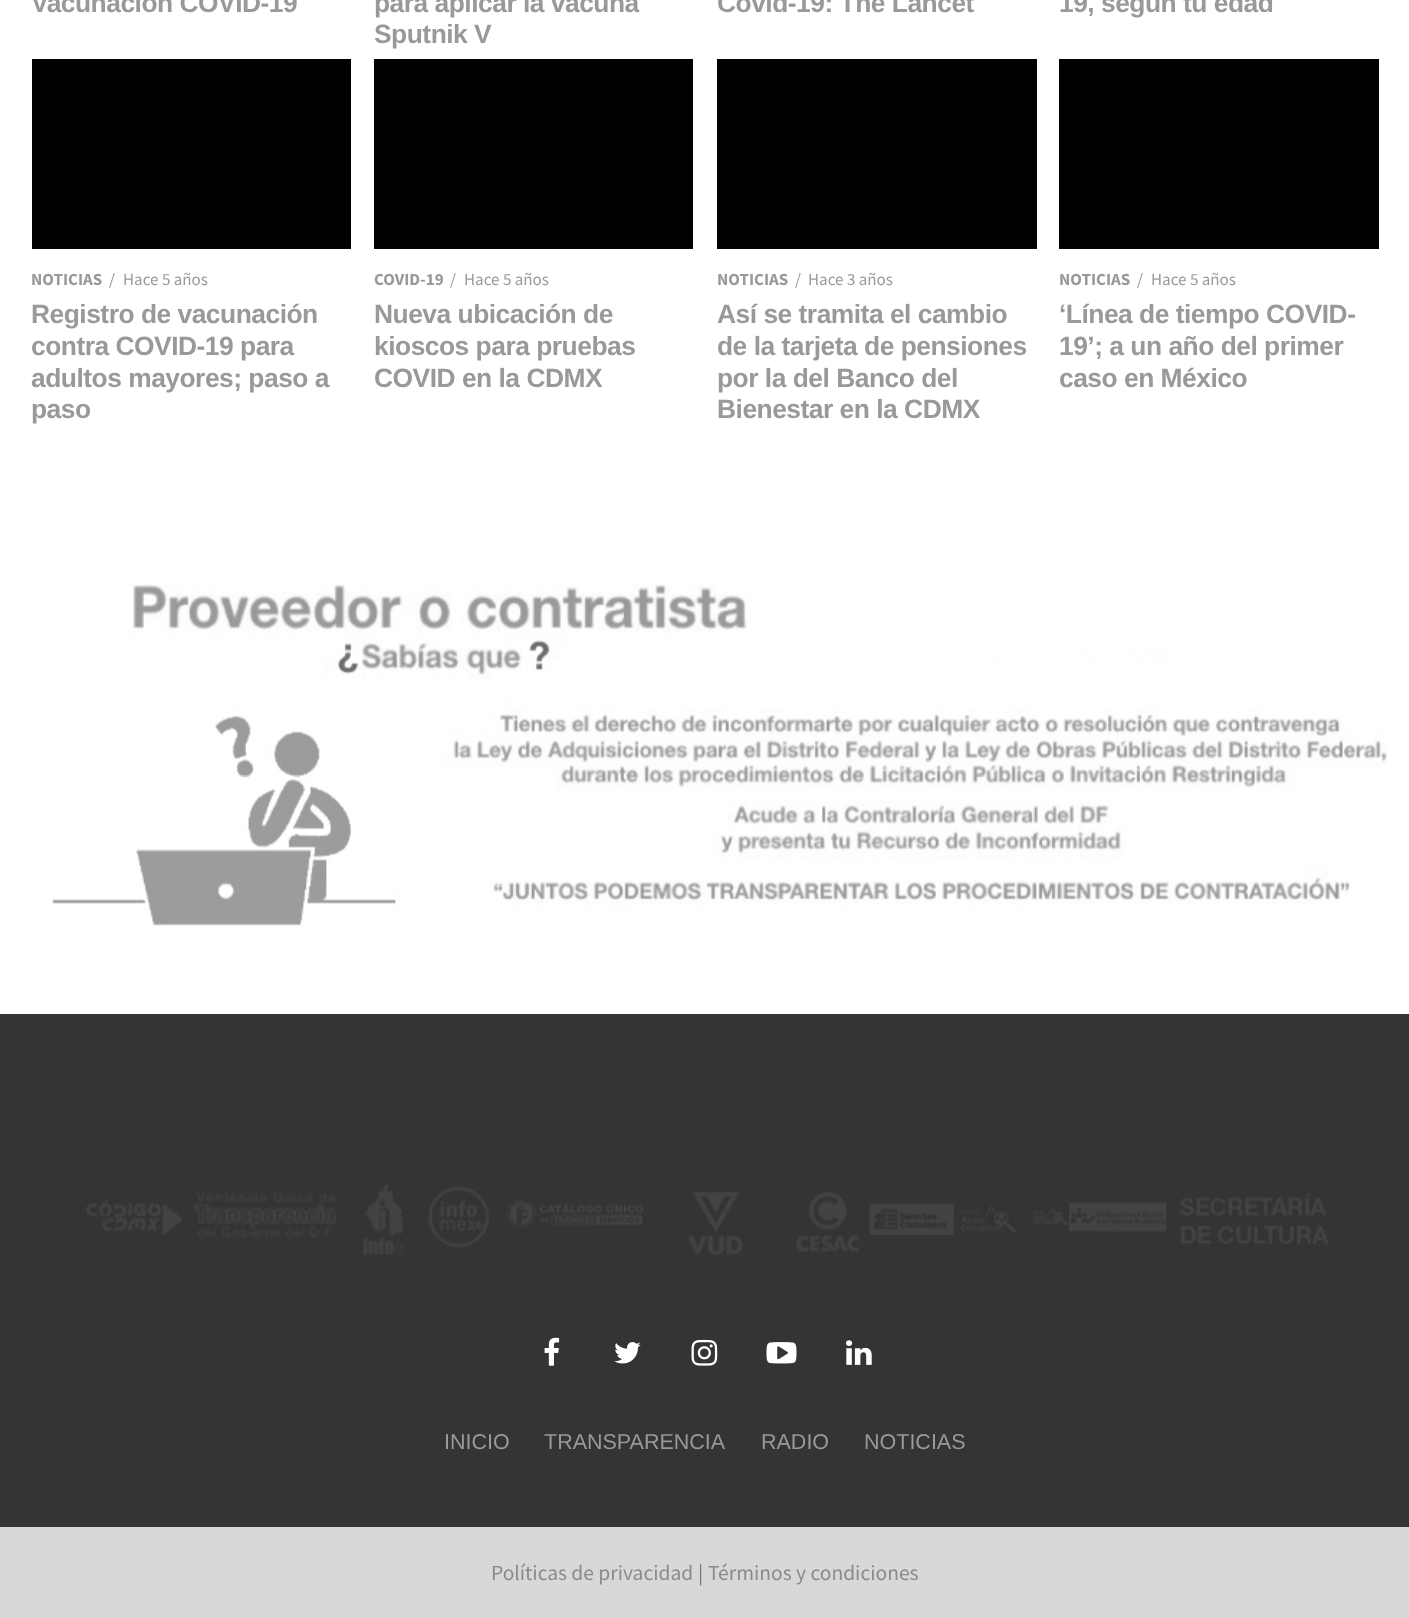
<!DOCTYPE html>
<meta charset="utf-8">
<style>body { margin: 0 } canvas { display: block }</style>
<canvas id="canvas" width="1409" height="1618"></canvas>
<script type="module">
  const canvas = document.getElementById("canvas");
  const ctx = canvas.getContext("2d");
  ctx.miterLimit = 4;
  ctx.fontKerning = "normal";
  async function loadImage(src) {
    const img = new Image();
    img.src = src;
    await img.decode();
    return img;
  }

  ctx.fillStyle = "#ffffff";
  ctx.fillRect(0, 0, 1409, 1618);
  ctx.letterSpacing = "-0.5px";
  ctx.font = "bold 26.4px Liberation Sans";
  ctx.fillStyle = "#999999";
  ctx.fillText("Vacunación COVID-19", 31, 12);
  ctx.fillText("para aplicar la vacuna", 374, 12);
  ctx.fillText("Sputnik V", 374, 43);
  ctx.fillText("Covid-19: The Lancet", 717, 12);
  ctx.fillText("19, según tu edad", 1059, 12);
  ctx.fillStyle = "#000000";
  ctx.fillRect(32, 59, 319, 190);
  ctx.letterSpacing = "0px";
  ctx.font = "bold 17px Source Sans Pro";
  ctx.fillStyle = "#999999";
  ctx.fillText("NOTICIAS", 31, 285);
  ctx.font = "17px Source Sans Pro";
  ctx.fillText("/", 109, 285);
  ctx.fillText("Hace 5 años", 123, 285);
  ctx.letterSpacing = "-0.5px";
  ctx.font = "bold 26.4px Liberation Sans";
  ctx.fillText("Registro de vacunación", 31, 323);
  ctx.fillText("contra COVID-19 para", 31, 355);
  ctx.fillText("adultos mayores; paso a", 31, 387);
  ctx.fillText("paso", 31, 418);
  ctx.fillStyle = "#000000";
  ctx.fillRect(374, 59, 319, 190);
  ctx.letterSpacing = "0px";
  ctx.font = "bold 17px Source Sans Pro";
  ctx.fillStyle = "#999999";
  ctx.fillText("COVID-19", 374, 285);
  ctx.font = "17px Source Sans Pro";
  ctx.fillText("/", 450, 285);
  ctx.fillText("Hace 5 años", 464, 285);
  ctx.letterSpacing = "-0.5px";
  ctx.font = "bold 26.4px Liberation Sans";
  ctx.fillText("Nueva ubicación de", 374, 323);
  ctx.fillText("kioscos para pruebas", 374, 355);
  ctx.fillText("COVID en la CDMX", 374, 387);
  ctx.fillStyle = "#000000";
  ctx.fillRect(717, 59, 320, 190);
  ctx.letterSpacing = "0px";
  ctx.font = "bold 17px Source Sans Pro";
  ctx.fillStyle = "#999999";
  ctx.fillText("NOTICIAS", 717, 285);
  ctx.font = "17px Source Sans Pro";
  ctx.fillText("/", 795, 285);
  ctx.fillText("Hace 3 años", 808, 285);
  ctx.letterSpacing = "-0.5px";
  ctx.font = "bold 26.4px Liberation Sans";
  ctx.fillText("Así se tramita el cambio", 717, 323);
  ctx.fillText("de la tarjeta de pensiones", 717, 355);
  ctx.fillText("por la del Banco del", 717, 387);
  ctx.fillText("Bienestar en la CDMX", 717, 418);
  ctx.fillStyle = "#000000";
  ctx.fillRect(1059, 59, 320, 190);
  ctx.letterSpacing = "0px";
  ctx.font = "bold 17px Source Sans Pro";
  ctx.fillStyle = "#999999";
  ctx.fillText("NOTICIAS", 1059, 285);
  ctx.font = "17px Source Sans Pro";
  ctx.fillText("/", 1137, 285);
  ctx.fillText("Hace 5 años", 1151, 285);
  ctx.letterSpacing = "-0.5px";
  ctx.font = "bold 26.4px Liberation Sans";
  ctx.fillText("‘Línea de tiempo COVID-", 1059, 323);
  ctx.fillText("19’; a un año del primer", 1059, 355);
  ctx.fillText("caso en México", 1059, 387);
  ctx.drawImage(await loadImage("img1.png"), 51, 584, 1337, 342);
  ctx.fillStyle = "#343434";
  ctx.fillRect(0, 1014, 1409, 513);
  ctx.drawImage(await loadImage("img2.png"), 86, 1199, 97, 36);
  ctx.drawImage(await loadImage("img3.png"), 193, 1190, 144, 48);
  ctx.drawImage(await loadImage("img4.png"), 363, 1183, 42, 72);
  ctx.drawImage(await loadImage("img5.png"), 428, 1186, 61, 62);
  ctx.drawImage(await loadImage("img6.png"), 506, 1199, 138, 29);
  ctx.drawImage(await loadImage("img7.png"), 688, 1192, 55, 63);
  ctx.drawImage(await loadImage("img8.png"), 796, 1192, 64, 60);
  ctx.drawImage(await loadImage("img9.png"), 869, 1203, 147, 32);
  ctx.drawImage(await loadImage("img10.png"), 1033, 1202, 133, 30);
  ctx.drawImage(await loadImage("img11.png"), 1179, 1193, 150, 51);
  ctx.drawImage(await loadImage("img12.png"), 544, 1337, 16, 29);
  ctx.drawImage(await loadImage("img13.png"), 614, 1342, 27, 22);
  ctx.drawImage(await loadImage("img14.png"), 691, 1339, 27, 27);
  ctx.drawImage(await loadImage("img15.png"), 766, 1342, 31, 22);
  ctx.drawImage(await loadImage("img16.png"), 846, 1340, 26, 25);
  ctx.letterSpacing = "0px";
  ctx.font = "21.5px Liberation Sans";
  ctx.fillStyle = "#999999";
  ctx.fillText("INICIO", 444, 1449);
  ctx.fillText("TRANSPARENCIA", 544, 1449);
  ctx.fillText("RADIO", 761, 1449);
  ctx.fillText("NOTICIAS", 864, 1449);
  ctx.fillStyle = "#d8d8d8";
  ctx.fillRect(0, 1527, 1409, 91);
  ctx.font = "21.5px Source Sans Pro";
  ctx.fillStyle = "#898c8c";
  ctx.fillText("Políticas de privacidad", 491, 1580);
  ctx.fillStyle = "#777777";
  ctx.fillText("|", 698, 1580);
  ctx.fillStyle = "#898c8c";
  ctx.fillText("Términos y condiciones", 708, 1580);
</script>
